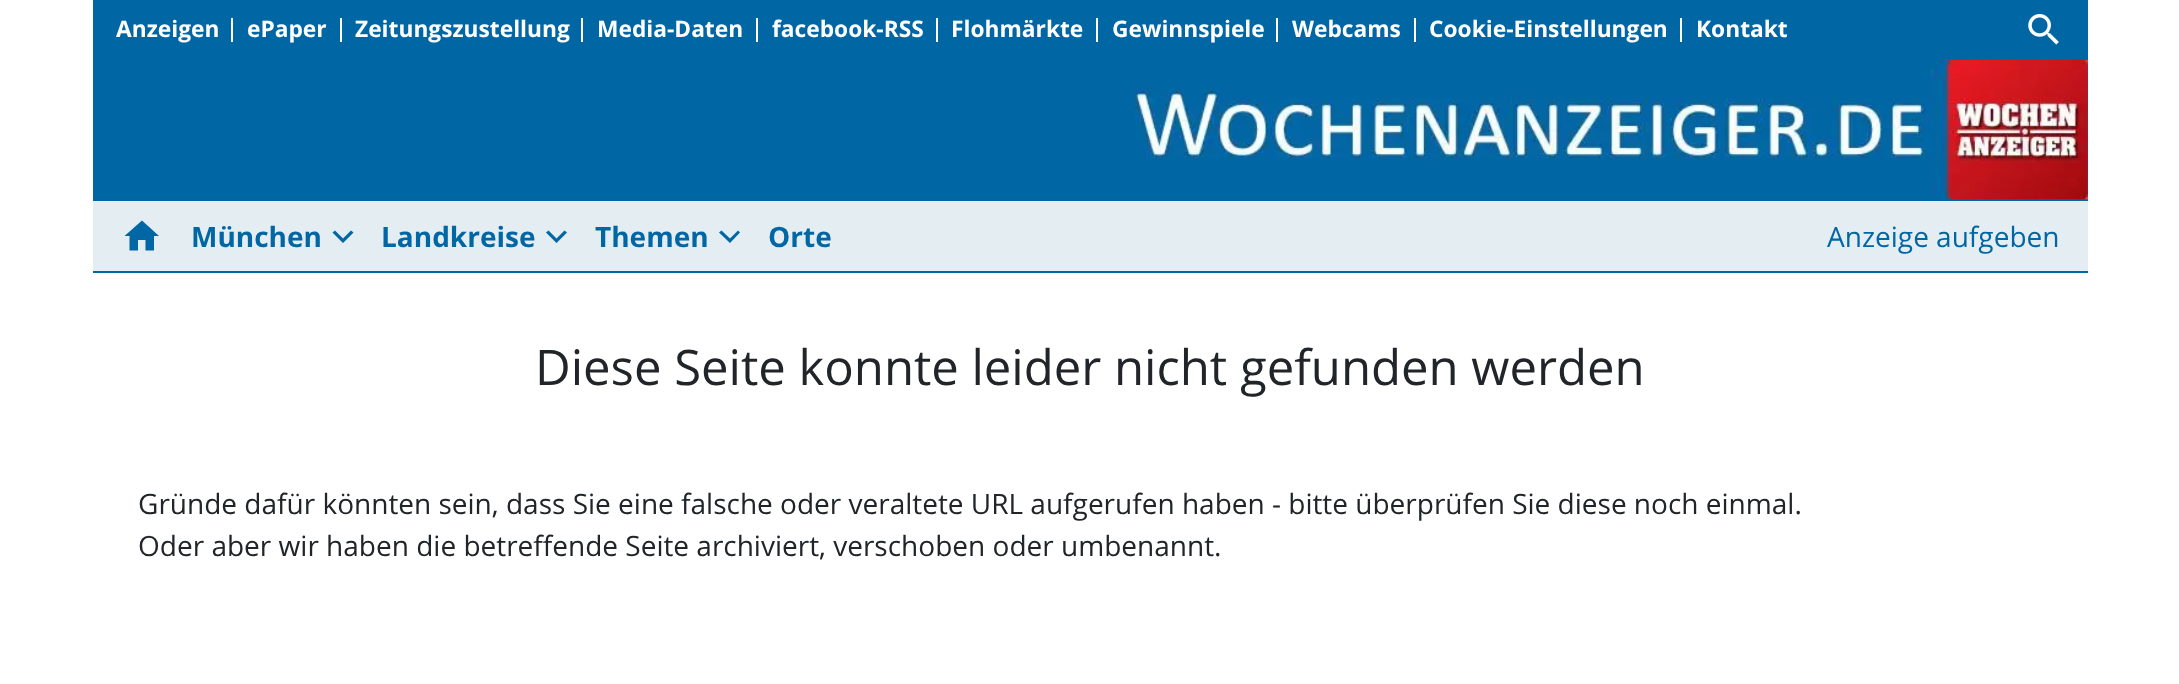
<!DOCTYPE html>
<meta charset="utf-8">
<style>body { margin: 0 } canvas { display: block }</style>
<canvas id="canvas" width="2179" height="684"></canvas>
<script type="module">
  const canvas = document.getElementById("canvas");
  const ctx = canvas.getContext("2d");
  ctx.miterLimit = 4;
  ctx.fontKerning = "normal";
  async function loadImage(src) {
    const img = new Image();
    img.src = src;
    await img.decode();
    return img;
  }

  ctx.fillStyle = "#ffffff";
  ctx.fillRect(0, 0, 2179, 684);
  ctx.fillStyle = "#0167a4";
  ctx.fillRect(93, 0, 1995, 201);
  ctx.drawImage(await loadImage("img1.png"), 1106, 60, 982, 140);
  ctx.font = "bold 22.75px Open Sans";
  ctx.fillStyle = "#ffffff";
  ctx.fillText("Anzeigen", 116, 37);
  ctx.fillRect(231, 18, 2, 24);
  ctx.fillText("ePaper", 247, 37);
  ctx.fillRect(340, 18, 2, 24);
  ctx.fillText("Zeitungszustellung", 355, 37);
  ctx.fillRect(581, 18, 2, 24);
  ctx.fillText("Media-Daten", 597, 37);
  ctx.fillRect(756, 18, 2, 24);
  ctx.fillText("facebook-RSS", 772, 37);
  ctx.fillRect(936, 18, 2, 24);
  ctx.fillText("Flohmärkte", 951, 37);
  ctx.fillRect(1096, 18, 2, 24);
  ctx.fillText("Gewinnspiele", 1112, 37);
  ctx.fillRect(1276, 18, 2, 24);
  ctx.fillText("Webcams", 1292, 37);
  ctx.fillRect(1414, 18, 2, 24);
  ctx.fillText("Cookie-Einstellungen", 1429, 37);
  ctx.fillRect(1680, 18, 2, 24);
  ctx.fillText("Kontakt", 1696, 37);
  ctx.drawImage(await loadImage("img2.png"), 2028, 14, 31, 31);
  ctx.fillStyle = "#e4edf2";
  ctx.fillRect(93, 201, 1995, 70);
  ctx.fillStyle = "#0167a4";
  ctx.beginPath();
  ctx.moveTo(138, 250.5);
  ctx.lineTo(129.5, 250.5);
  ctx.lineTo(129.5, 236);
  ctx.lineTo(124.5, 236);
  ctx.lineTo(142, 220.5);
  ctx.lineTo(159, 236);
  ctx.lineTo(154, 236);
  ctx.lineTo(154, 250.5);
  ctx.lineTo(145.5, 250.5);
  ctx.lineTo(145.5, 240);
  ctx.lineTo(138, 240);
  ctx.closePath();
  ctx.fill();
  ctx.font = "bold 28px Open Sans";
  ctx.fillText("München", 191, 247);
  ctx.beginPath();
  ctx.moveTo(351, 230.5);
  ctx.lineTo(353.5, 232.5);
  ctx.lineTo(343, 243);
  ctx.lineTo(332.5, 232.5);
  ctx.lineTo(335, 230.5);
  ctx.lineTo(343, 238.5);
  ctx.closePath();
  ctx.fill();
  ctx.fillText("Landkreise", 381, 247);
  ctx.beginPath();
  ctx.moveTo(564.5, 230.5);
  ctx.lineTo(567, 232.5);
  ctx.lineTo(556.5, 243);
  ctx.lineTo(546, 232.5);
  ctx.lineTo(548.5, 230.5);
  ctx.lineTo(556.5, 238.5);
  ctx.closePath();
  ctx.fill();
  ctx.fillText("Themen", 595, 247);
  ctx.beginPath();
  ctx.moveTo(738, 230.5);
  ctx.lineTo(740, 232.5);
  ctx.lineTo(730, 243);
  ctx.lineTo(719, 232.5);
  ctx.lineTo(721.5, 230.5);
  ctx.lineTo(730, 238.5);
  ctx.closePath();
  ctx.fill();
  ctx.fillText("Orte", 768, 247);
  ctx.font = "28px Open Sans";
  ctx.fillText("Anzeige aufgeben", 1827, 247);
  ctx.fillRect(93, 271, 1995, 2);
  ctx.font = "49px Open Sans";
  ctx.fillStyle = "#212529";
  ctx.fillText("Diese Seite konnte leider nicht gefunden werden", 535, 385);
  ctx.font = "28px Open Sans";
  ctx.fillText("Gründe dafür könnten sein, dass Sie eine falsche oder veraltete URL aufgerufen haben - bitte überprüfen Sie diese noch einmal.", 138, 514);
  ctx.fillText("Oder aber wir haben die betreffende Seite archiviert, verschoben oder umbenannt.", 138, 556);
</script>
